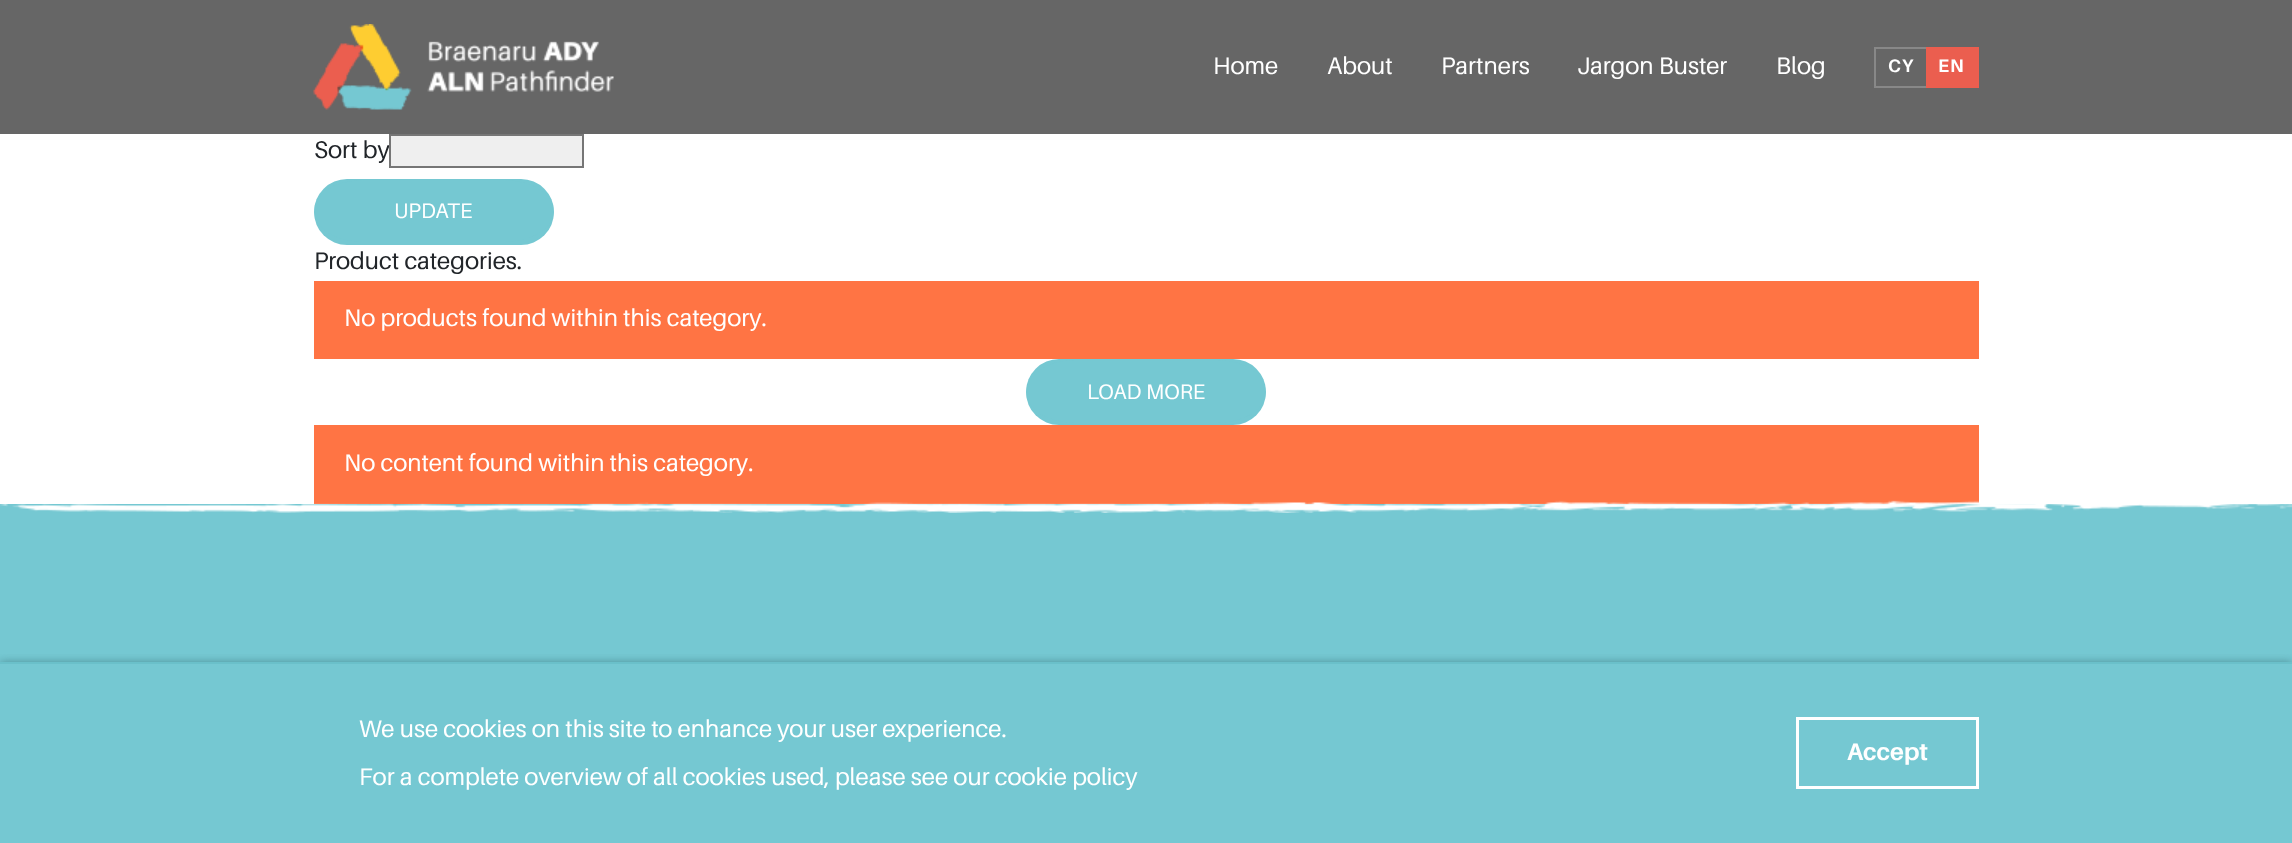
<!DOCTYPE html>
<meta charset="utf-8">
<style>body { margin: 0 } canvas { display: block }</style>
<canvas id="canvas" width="2292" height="843"></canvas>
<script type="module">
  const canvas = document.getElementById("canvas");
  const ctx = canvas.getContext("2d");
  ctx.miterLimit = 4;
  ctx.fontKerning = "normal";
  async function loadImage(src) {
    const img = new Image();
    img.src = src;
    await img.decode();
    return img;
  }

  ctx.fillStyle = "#ffffff";
  ctx.fillRect(0, 0, 2292, 843);
  ctx.fillStyle = "#666666";
  ctx.fillRect(0, 0, 2292, 134);
  ctx.drawImage(await loadImage("img1.png"), 313, 24, 301, 86);
  ctx.font = "24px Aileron";
  ctx.fillStyle = "#ffffff";
  ctx.fillText("Home", 1213, 74);
  ctx.fillText("About", 1327, 74);
  ctx.fillText("Partners", 1441, 74);
  ctx.fillText("Jargon Buster", 1577, 74);
  ctx.fillText("Blog", 1776, 74);
  ctx.fillStyle = "#888888";
  ctx.fillRect(1874, 47, 52, 2);
  ctx.fillRect(1874, 86, 52, 2);
  ctx.fillRect(1874, 47, 2, 40);
  ctx.letterSpacing = "1px";
  ctx.font = "bold 18px Aileron";
  ctx.fillStyle = "#ffffff";
  ctx.fillText("CY", 1888, 72);
  ctx.fillStyle = "#eb5e4f";
  ctx.fillRect(1926, 47, 53, 41);
  ctx.fillStyle = "#ffffff";
  ctx.fillText("EN", 1938, 72);
  ctx.letterSpacing = "0px";
  ctx.font = "24px Aileron";
  ctx.fillStyle = "#212529";
  ctx.fillText("Sort by", 314, 158);
  ctx.fillStyle = "#efefef";
  ctx.beginPath();
  ctx.rect(390, 135, 193, 32);
  ctx.fill();
  ctx.strokeStyle = "#767676";
  ctx.lineWidth = 2;
  ctx.stroke();
  ctx.fillStyle = "#75c8d2";
  ctx.beginPath();
  ctx.roundRect(314, 179, 240, 66, 33);
  ctx.fill();
  ctx.fillStyle = "rgba(117, 200, 210, 0.6)";
  ctx.beginPath();
  ctx.moveTo(364, 180);
  ctx.lineTo(503, 180);
  ctx.bezierCurveTo(531, 180, 554, 194, 554, 211);
  ctx.bezierCurveTo(554, 228, 531, 242, 503, 242);
  ctx.lineTo(364, 242);
  ctx.bezierCurveTo(336, 242, 314, 228, 314, 211);
  ctx.bezierCurveTo(314, 194, 336, 180, 364, 180);
  ctx.closePath();
  ctx.fill();
  ctx.font = "21px Aileron";
  ctx.fillStyle = "#ffffff";
  ctx.fillText("UPDATE", 394, 218);
  ctx.font = "24px Aileron";
  ctx.fillStyle = "#212529";
  ctx.fillText("Product categories.", 314, 269);
  ctx.fillStyle = "#ff7444";
  ctx.fillRect(314, 281, 1665, 78);
  ctx.fillStyle = "#ffffff";
  ctx.fillText("No products found within this category.", 344, 326);
  ctx.fillStyle = "#75c8d2";
  ctx.beginPath();
  ctx.roundRect(1026, 359, 240, 66, 33);
  ctx.fill();
  ctx.fillStyle = "rgba(117, 200, 210, 0.6)";
  ctx.beginPath();
  ctx.moveTo(1076, 360);
  ctx.lineTo(1216, 360);
  ctx.bezierCurveTo(1243, 360, 1266, 375, 1266, 392);
  ctx.bezierCurveTo(1266, 409, 1243, 423, 1216, 423);
  ctx.lineTo(1076, 423);
  ctx.bezierCurveTo(1049, 423, 1026, 409, 1026, 392);
  ctx.bezierCurveTo(1026, 375, 1049, 360, 1076, 360);
  ctx.closePath();
  ctx.fill();
  ctx.font = "21px Aileron";
  ctx.fillStyle = "#ffffff";
  ctx.fillText("LOAD MORE", 1087, 399);
  ctx.fillStyle = "#ff7444";
  ctx.fillRect(314, 425, 1665, 79);
  ctx.font = "24px Aileron";
  ctx.fillStyle = "#ffffff";
  ctx.fillText("No content found within this category.", 344, 471);
  ctx.fillStyle = "#75c8d2";
  ctx.fillRect(0, 504, 2292, 339);
  ctx.drawImage(await loadImage("img2.png"), 0, 500, 2292, 13);
  ctx.save();
  ctx.beginPath();
  ctx.rect(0, 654, 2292, 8);
  ctx.clip();
  ctx.fillStyle = "#4e9098";
  ctx.filter = "blur(4px)";
  ctx.beginPath();
  ctx.rect(0, 662, 2292, 181);
  ctx.fill();
  ctx.filter = "none";
  ctx.restore();
  ctx.fillStyle = "#6ac0ca";
  ctx.fillRect(0, 662, 2292, 2);
  ctx.fillStyle = "#ffffff";
  ctx.fillText("We use cookies on this site to enhance your user experience.", 359, 737);
  ctx.fillText("For a complete overview of all cookies used, please see our cookie policy", 359, 785);
  ctx.strokeStyle = "#ffffff";
  ctx.lineWidth = 3;
  ctx.strokeRect(1797.5, 718.5, 180, 69);
  ctx.font = "bold 24px Aileron";
  ctx.fillText("Accept", 1847, 760);
</script>
